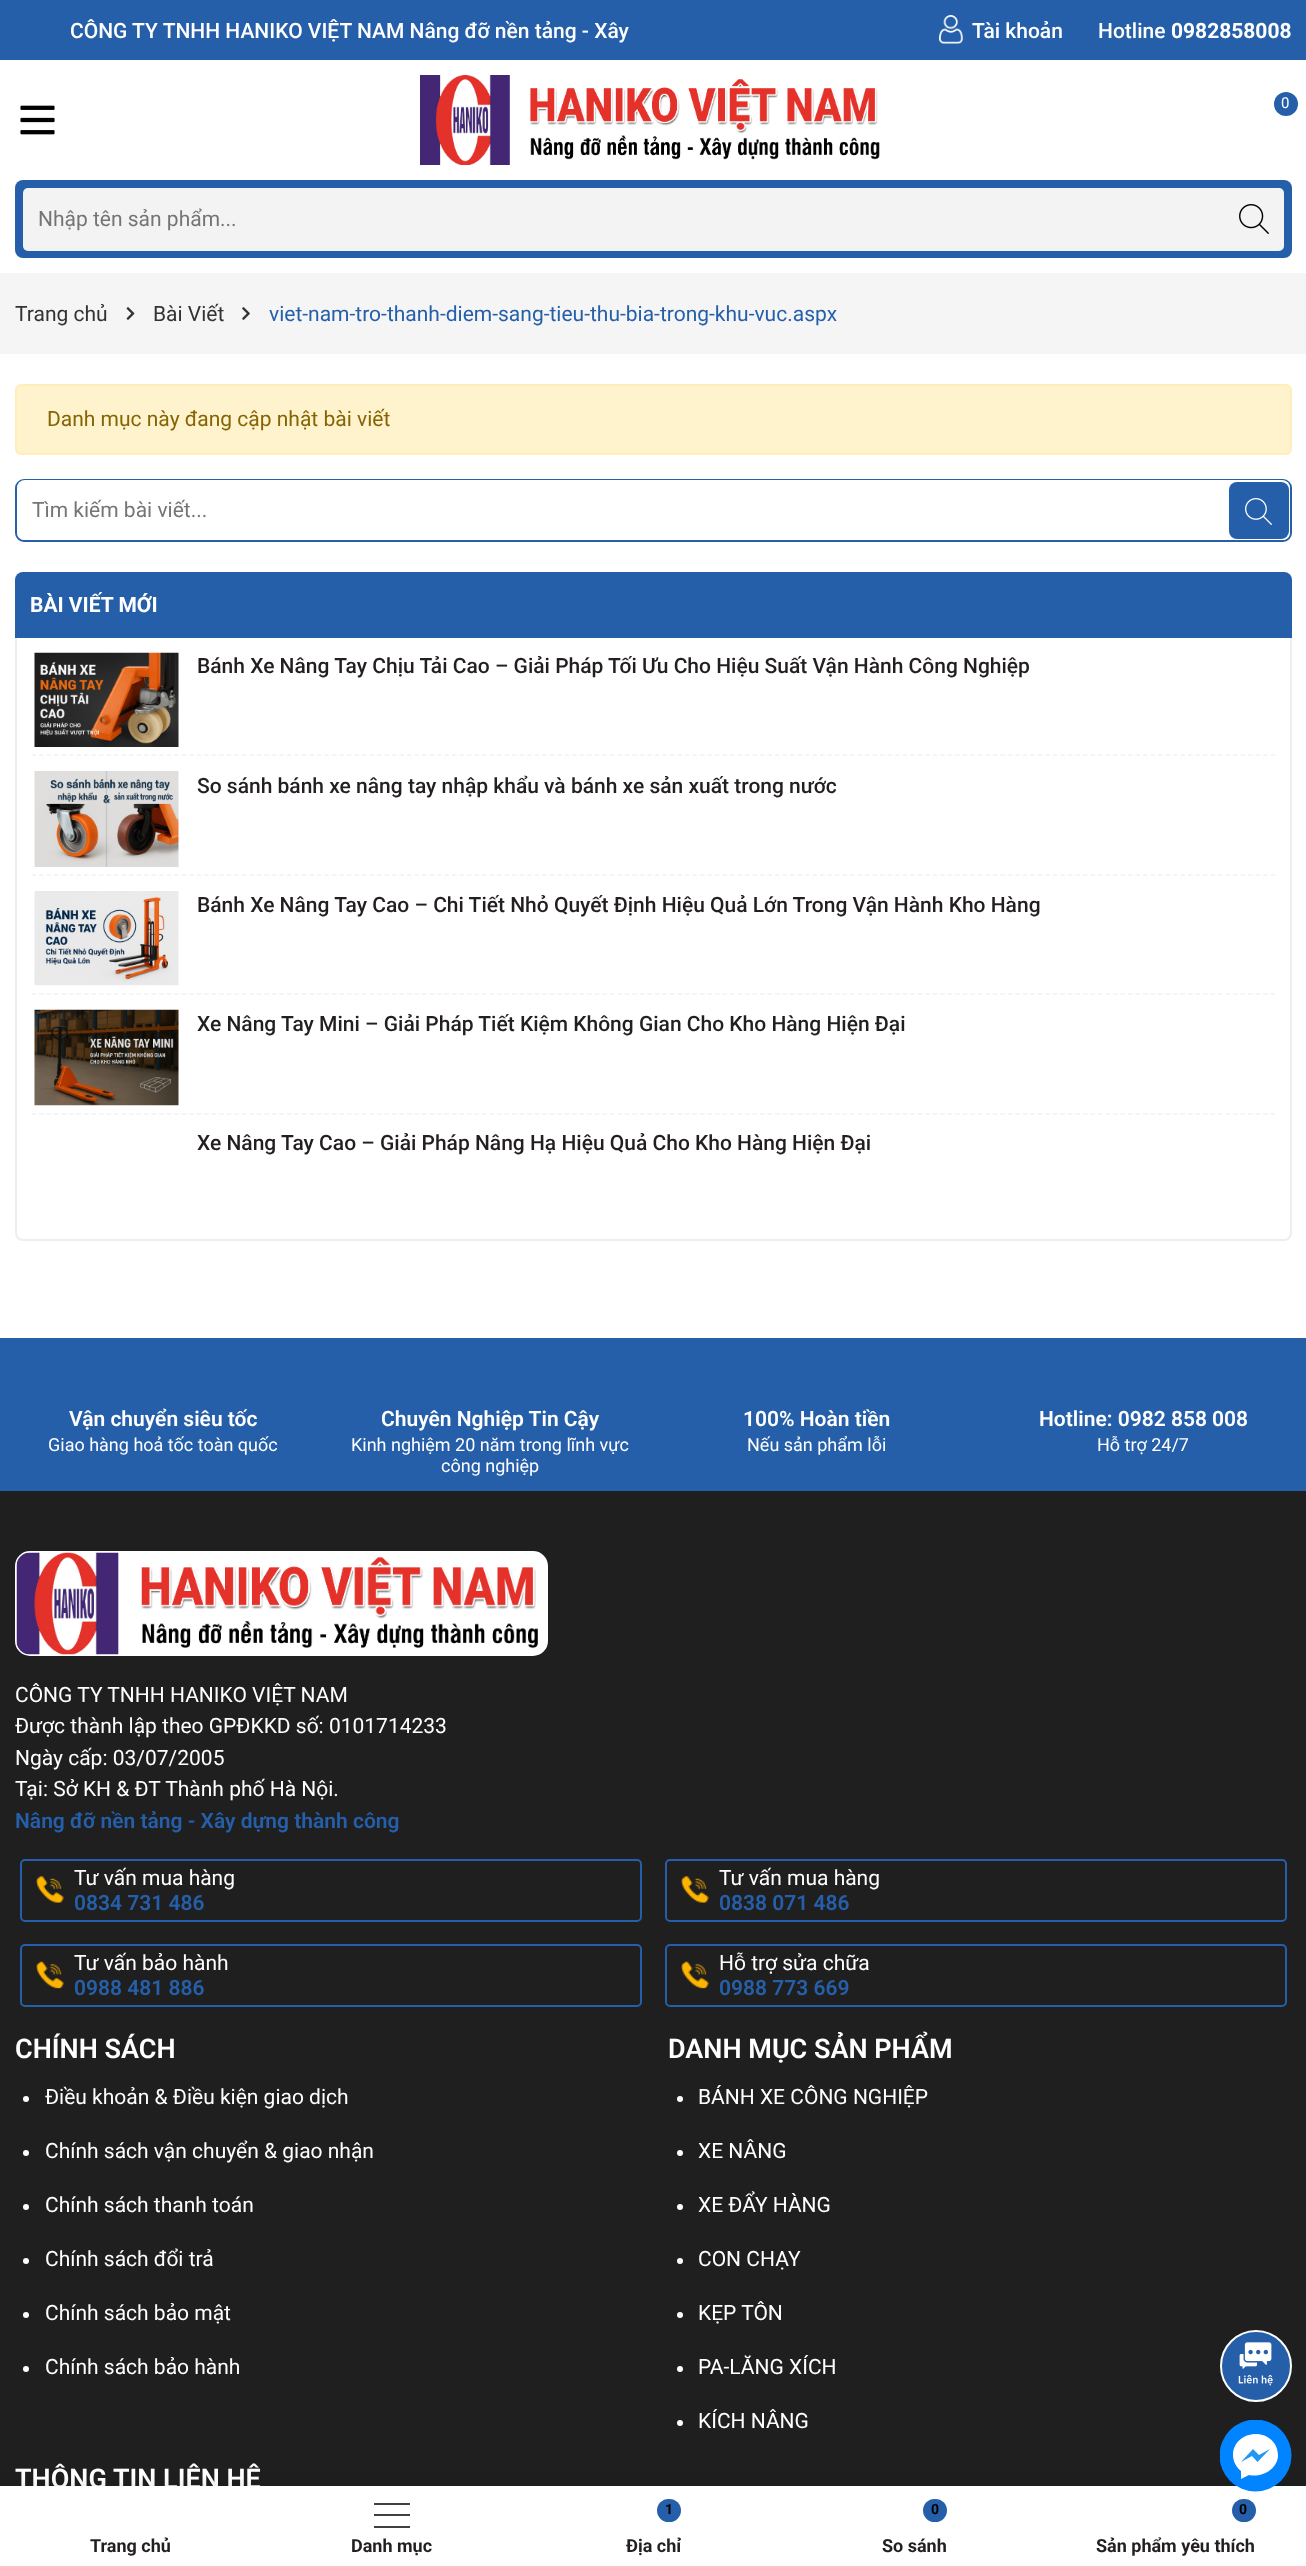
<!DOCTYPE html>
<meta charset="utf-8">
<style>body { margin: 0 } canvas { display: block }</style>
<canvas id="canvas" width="1306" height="2566"></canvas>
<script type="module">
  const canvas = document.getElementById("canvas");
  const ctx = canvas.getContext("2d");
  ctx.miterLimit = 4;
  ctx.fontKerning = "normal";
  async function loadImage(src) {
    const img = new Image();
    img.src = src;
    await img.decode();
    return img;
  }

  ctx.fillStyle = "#ffffff";
  ctx.fillRect(0, 0, 1306, 2566);
  ctx.fillStyle = "#255faa";
  ctx.fillRect(0, 0, 1306, 60);
  ctx.font = "500 21px Roboto";
  ctx.fillStyle = "#ffffff";
  ctx.fillText("CÔNG TY TNHH HANIKO VIỆT NAM Nâng đỡ nền tảng - Xây", 70, 38);
  ctx.drawImage(await loadImage("img1.png"), 939, 15, 24, 29);
  ctx.fillText("Tài khoản", 972, 38);
  ctx.fillText("Hotline", 1098, 38);
  ctx.font = "bold 21px Roboto";
  ctx.fillText("0982858008", 1171, 38);
  ctx.drawImage(await loadImage("img2.png"), 420, 75, 460, 90);
  ctx.fillStyle = "#255faa";
  ctx.beginPath();
  ctx.arc(1286, 104, 12, 0, Math.PI * 2);
  ctx.fill();
  ctx.font = "15px Roboto";
  ctx.fillStyle = "#ffffff";
  ctx.fillText("0", 1281, 108);
  ctx.drawImage(await loadImage("img3.png"), 20, 105, 35, 30);
  ctx.fillStyle = "#255faa";
  ctx.beginPath();
  ctx.roundRect(15, 180, 1277, 78, 8);
  ctx.fill();
  ctx.fillStyle = "#f3f3f3";
  ctx.beginPath();
  ctx.roundRect(23, 188, 1261, 63, 5);
  ctx.fill();
  ctx.font = "21px Roboto";
  ctx.fillStyle = "#757575";
  ctx.fillText("Nhập tên sản phẩm...", 38, 226);
  ctx.drawImage(await loadImage("img4.png"), 1239, 204, 30, 30);
  ctx.fillStyle = "#f5f5f5";
  ctx.fillRect(0, 273, 1306, 81);
  ctx.fillStyle = "#333333";
  ctx.fillText("Trang chủ", 15, 321);
  ctx.drawImage(await loadImage("img5.png"), 126, 307, 9, 13);
  ctx.fillText("Bài Viết", 153, 321);
  ctx.drawImage(await loadImage("img6.png"), 242, 307, 8, 13);
  ctx.fillStyle = "#255faa";
  ctx.fillText("viet-nam-tro-thanh-diem-sang-tieu-thu-bia-trong-khu-vuc.aspx", 269, 321);
  ctx.fillStyle = "#fff3cd";
  ctx.beginPath();
  ctx.roundRect(16, 385, 1275, 69, 5);
  ctx.fill();
  ctx.strokeStyle = "#ffeeba";
  ctx.lineWidth = 2;
  ctx.stroke();
  ctx.fillStyle = "#856404";
  ctx.fillText("Danh mục này đang cập nhật bài viết", 47, 426);
  ctx.beginPath();
  ctx.roundRect(16, 480, 1275, 61, 8);
  ctx.strokeStyle = "#255faa";
  ctx.stroke();
  ctx.fillStyle = "#ffffff";
  ctx.beginPath();
  ctx.roundRect(17, 480, 1273, 60, 8);
  ctx.fill();
  ctx.fillStyle = "#757575";
  ctx.fillText("Tìm kiếm bài viết...", 32, 517);
  ctx.fillStyle = "#255faa";
  ctx.beginPath();
  ctx.roundRect(1229, 482, 60, 57, 8);
  ctx.fill();
  ctx.drawImage(await loadImage("img7.png"), 1245, 498, 27, 27);
  ctx.beginPath();
  ctx.roundRect(16, 573, 1275, 667, 7);
  ctx.strokeStyle = "#eeeeee";
  ctx.stroke();
  ctx.beginPath();
  ctx.roundRect(15, 572, 1277, 66, [8, 8, 0, 0]);
  ctx.fill();
  ctx.font = "bold 21px Roboto";
  ctx.fillStyle = "#ffffff";
  ctx.fillText("BÀI VIẾT MỚI", 30, 612);
  ctx.beginPath();
  ctx.moveTo(31.5, 755);
  ctx.lineTo(1275, 755);
  ctx.strokeStyle = "#f2f2f2";
  ctx.lineWidth = 1.5;
  ctx.setLineDash([4.5, 3.01]);
  ctx.stroke();
  ctx.drawImage(await loadImage("img8.png"), 34, 652, 145, 95);
  ctx.font = "500 21px Roboto";
  ctx.fillStyle = "#231f20";
  ctx.fillText("Bánh Xe Nâng Tay Chịu Tải Cao – Giải Pháp Tối Ưu Cho Hiệu Suất Vận Hành Công Nghiệp", 197, 673);
  ctx.beginPath();
  ctx.moveTo(31.5, 875);
  ctx.lineTo(1275, 875);
  ctx.stroke();
  ctx.drawImage(await loadImage("img9.png"), 34, 771, 145, 96);
  ctx.fillText("So sánh bánh xe nâng tay nhập khẩu và bánh xe sản xuất trong nước", 197, 793);
  ctx.beginPath();
  ctx.moveTo(31.5, 994);
  ctx.lineTo(1275, 994);
  ctx.stroke();
  ctx.drawImage(await loadImage("img10.png"), 34, 891, 145, 95);
  ctx.fillText("Bánh Xe Nâng Tay Cao – Chi Tiết Nhỏ Quyết Định Hiệu Quả Lớn Trong Vận Hành Kho Hàng", 197, 912);
  ctx.beginPath();
  ctx.moveTo(31.5, 1114);
  ctx.lineTo(1275, 1114);
  ctx.stroke();
  ctx.drawImage(await loadImage("img11.png"), 34, 1009, 145, 97);
  ctx.fillText("Xe Nâng Tay Mini – Giải Pháp Tiết Kiệm Không Gian Cho Kho Hàng Hiện Đại", 197, 1031);
  ctx.fillText("Xe Nâng Tay Cao – Giải Pháp Nâng Hạ Hiệu Quả Cho Kho Hàng Hiện Đại", 197, 1150);
  ctx.fillStyle = "#255faa";
  ctx.fillRect(0, 1338, 1306, 153);
  ctx.font = "600 21px Roboto";
  ctx.fillStyle = "#ffffff";
  ctx.fillText("Vận chuyển siêu tốc", 69, 1426);
  ctx.font = "18px Roboto";
  ctx.fillText("Giao hàng hoả tốc toàn quốc", 48, 1451);
  ctx.font = "600 21px Roboto";
  ctx.fillText("Chuyên Nghiệp Tin Cậy", 381, 1426);
  ctx.font = "18px Roboto";
  ctx.fillText("Kinh nghiệm 20 năm trong lĩnh vực", 351, 1451);
  ctx.fillText("công nghiệp", 441, 1472);
  ctx.font = "600 21px Roboto";
  ctx.fillText("100% Hoàn tiền", 743, 1426);
  ctx.font = "18px Roboto";
  ctx.fillText("Nếu sản phẩm lỗi", 747, 1451);
  ctx.font = "600 21px Roboto";
  ctx.fillText("Hotline: 0982 858 008", 1039, 1426);
  ctx.font = "18px Roboto";
  ctx.fillText("Hỗ trợ 24/7", 1097, 1451);
  ctx.fillStyle = "#1f1f1f";
  ctx.fillRect(0, 1491, 1306, 995);
  ctx.fillStyle = "#ffffff";
  ctx.beginPath();
  ctx.roundRect(16, 1552, 531, 103, 14);
  ctx.fill();
  ctx.strokeStyle = "#ffffff";
  ctx.lineWidth = 2;
  ctx.setLineDash([]);
  ctx.stroke();
  ctx.drawImage(await loadImage("img12.png"), 16, 1552, 522, 103);
  ctx.font = "21px Roboto";
  ctx.fillText("CÔNG TY TNHH HANIKO VIỆT NAM", 15, 1702);
  ctx.fillText("Được thành lập theo GPĐKKD số: 0101714233", 15, 1733);
  ctx.fillText("Ngày cấp: 03/07/2005", 15, 1765);
  ctx.fillText("Tại: Sở KH & ĐT Thành phố Hà Nội.", 15, 1796);
  ctx.font = "600 21px Roboto";
  ctx.fillStyle = "#255faa";
  ctx.fillText("Nâng đỡ nền tảng - Xây dựng thành công", 15, 1828);
  ctx.drawImage(await loadImage("img13.png"), 36, 1876, 28, 27);
  ctx.beginPath();
  ctx.roundRect(21, 1860, 620, 61, 4);
  ctx.strokeStyle = "#255faa";
  ctx.stroke();
  ctx.font = "21px Roboto";
  ctx.fillStyle = "#ffffff";
  ctx.fillText("Tư vấn mua hàng", 74, 1885);
  ctx.font = "600 21px Roboto";
  ctx.fillStyle = "#255faa";
  ctx.fillText("0834 731 486", 74, 1910);
  ctx.drawImage(await loadImage("img13.png"), 681, 1876, 28, 27);
  ctx.beginPath();
  ctx.roundRect(666, 1860, 620, 61, 4);
  ctx.stroke();
  ctx.font = "21px Roboto";
  ctx.fillStyle = "#ffffff";
  ctx.fillText("Tư vấn mua hàng", 719, 1885);
  ctx.font = "600 21px Roboto";
  ctx.fillStyle = "#255faa";
  ctx.fillText("0838 071 486", 719, 1910);
  ctx.drawImage(await loadImage("img14.png"), 36, 1961, 28, 28);
  ctx.beginPath();
  ctx.roundRect(21, 1945, 620, 61, 4);
  ctx.stroke();
  ctx.font = "21px Roboto";
  ctx.fillStyle = "#ffffff";
  ctx.fillText("Tư vấn bảo hành", 74, 1970);
  ctx.font = "600 21px Roboto";
  ctx.fillStyle = "#255faa";
  ctx.fillText("0988 481 886", 74, 1995);
  ctx.drawImage(await loadImage("img14.png"), 681, 1961, 28, 28);
  ctx.beginPath();
  ctx.roundRect(666, 1945, 620, 61, 4);
  ctx.stroke();
  ctx.font = "21px Roboto";
  ctx.fillStyle = "#ffffff";
  ctx.fillText("Hỗ trợ sửa chữa", 719, 1970);
  ctx.font = "600 21px Roboto";
  ctx.fillStyle = "#255faa";
  ctx.fillText("0988 773 669", 719, 1995);
  ctx.font = "600 27px Roboto";
  ctx.fillStyle = "#ffffff";
  ctx.fillText("CHÍNH SÁCH", 15, 2058);
  ctx.beginPath();
  ctx.arc(26, 2099, 3, 0, Math.PI * 2);
  ctx.fill();
  ctx.font = "21px Roboto";
  ctx.fillText("Điều khoản & Điều kiện giao dịch", 45, 2104);
  ctx.beginPath();
  ctx.arc(26, 2153, 3, 0, Math.PI * 2);
  ctx.fill();
  ctx.fillText("Chính sách vận chuyển & giao nhận", 45, 2158);
  ctx.beginPath();
  ctx.arc(26, 2207, 3, 0, Math.PI * 2);
  ctx.fill();
  ctx.fillText("Chính sách thanh toán", 45, 2212);
  ctx.beginPath();
  ctx.arc(26, 2261, 3, 0, Math.PI * 2);
  ctx.fill();
  ctx.fillText("Chính sách đổi trả", 45, 2266);
  ctx.beginPath();
  ctx.arc(26, 2315, 3, 0, Math.PI * 2);
  ctx.fill();
  ctx.fillText("Chính sách bảo mật", 45, 2320);
  ctx.beginPath();
  ctx.arc(26, 2369, 3, 0, Math.PI * 2);
  ctx.fill();
  ctx.fillText("Chính sách bảo hành", 45, 2374);
  ctx.font = "600 27px Roboto";
  ctx.fillText("DANH MỤC SẢN PHẨM", 668, 2058);
  ctx.beginPath();
  ctx.arc(680, 2099, 3, 0, Math.PI * 2);
  ctx.fill();
  ctx.font = "21px Roboto";
  ctx.fillText("BÁNH XE CÔNG NGHIỆP", 698, 2104);
  ctx.beginPath();
  ctx.arc(680, 2153, 3, 0, Math.PI * 2);
  ctx.fill();
  ctx.fillText("XE NÂNG", 698, 2158);
  ctx.beginPath();
  ctx.arc(680, 2207, 3, 0, Math.PI * 2);
  ctx.fill();
  ctx.fillText("XE ĐẨY HÀNG", 698, 2212);
  ctx.beginPath();
  ctx.arc(680, 2261, 3, 0, Math.PI * 2);
  ctx.fill();
  ctx.fillText("CON CHẠY", 698, 2266);
  ctx.beginPath();
  ctx.arc(680, 2315, 3, 0, Math.PI * 2);
  ctx.fill();
  ctx.fillText("KẸP TÔN", 698, 2320);
  ctx.beginPath();
  ctx.arc(680, 2369, 3, 0, Math.PI * 2);
  ctx.fill();
  ctx.fillText("PA-LĂNG XÍCH", 698, 2374);
  ctx.beginPath();
  ctx.arc(680, 2423, 3, 0, Math.PI * 2);
  ctx.fill();
  ctx.fillText("KÍCH NÂNG", 698, 2428);
  ctx.font = "600 27px Roboto";
  ctx.fillText("THÔNG TIN LIÊN HỆ", 15, 2488);
  ctx.fillStyle = "#255faa";
  ctx.beginPath();
  ctx.arc(1256, 2366, 35, 0, Math.PI * 2);
  ctx.fill();
  ctx.strokeStyle = "#ffffff";
  ctx.stroke();
  ctx.drawImage(await loadImage("img15.png"), 1238, 2342, 35, 44);
  ctx.fillStyle = "rgba(0, 0, 0, 0.12)";
  ctx.filter = "blur(7px)";
  ctx.beginPath();
  ctx.rect(0, 2486, 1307, 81);
  ctx.fill();
  ctx.filter = "none";
  ctx.fillStyle = "#ffffff";
  ctx.fillRect(0, 2486, 1306, 80);
  ctx.save();
  ctx.beginPath();
  ctx.rect(1220, 2420, 72, 72);
  ctx.clip();
  ctx.fillStyle = "#0084ff";
  ctx.beginPath();
  ctx.arc(1255.5, 2455.5, 36, 0, Math.PI * 2);
  ctx.fill();
  ctx.restore();
  ctx.beginPath();
  ctx.moveTo(1278, 2455);
  ctx.bezierCurveTo(1278, 2469, 1262, 2478, 1249, 2475);
  ctx.lineTo(1241, 2479);
  ctx.lineTo(1241, 2471);
  ctx.bezierCurveTo(1236, 2467, 1233, 2461, 1233, 2455);
  ctx.bezierCurveTo(1233, 2443, 1243, 2434, 1256, 2434);
  ctx.bezierCurveTo(1268, 2434, 1278, 2443, 1278, 2455);
  ctx.closePath();
  ctx.fill();
  ctx.fillStyle = "#2196f3";
  ctx.beginPath();
  ctx.moveTo(1270, 2449);
  ctx.lineTo(1257.5, 2462);
  ctx.lineTo(1252, 2456);
  ctx.lineTo(1241, 2462);
  ctx.lineTo(1253, 2449);
  ctx.lineTo(1259, 2455);
  ctx.closePath();
  ctx.fill();
  ctx.font = "bold 18px Roboto";
  ctx.fillStyle = "#231f20";
  ctx.fillText("Trang chủ", 90, 2552);
  ctx.fillStyle = "#404040";
  ctx.fillRect(374, 2503, 36, 2);
  ctx.fillRect(374, 2514, 36, 2);
  ctx.fillRect(374, 2526, 36, 2);
  ctx.fillStyle = "#231f20";
  ctx.fillText("Danh mục", 351, 2552);
  ctx.fillStyle = "#255faa";
  ctx.beginPath();
  ctx.roundRect(657, 2499, 24, 23, 11.5);
  ctx.fill();
  ctx.font = "bold 14px Roboto";
  ctx.fillStyle = "#000000";
  ctx.fillText("1", 665, 2514);
  ctx.font = "bold 18px Roboto";
  ctx.fillStyle = "#231f20";
  ctx.fillText("Địa chỉ", 626, 2552);
  ctx.fillStyle = "#255faa";
  ctx.beginPath();
  ctx.roundRect(923, 2499, 24, 23, 11.5);
  ctx.fill();
  ctx.font = "bold 14px Roboto";
  ctx.fillStyle = "#000000";
  ctx.fillText("0", 931, 2514);
  ctx.font = "bold 18px Roboto";
  ctx.fillStyle = "#231f20";
  ctx.fillText("So sánh", 882, 2552);
  ctx.fillStyle = "#255faa";
  ctx.beginPath();
  ctx.roundRect(1232, 2499, 24, 23, 11.5);
  ctx.fill();
  ctx.font = "bold 14px Roboto";
  ctx.fillStyle = "#000000";
  ctx.fillText("0", 1239, 2514);
  ctx.font = "bold 18px Roboto";
  ctx.fillStyle = "#231f20";
  ctx.fillText("Sản phẩm yêu thích", 1096, 2552);
</script>
